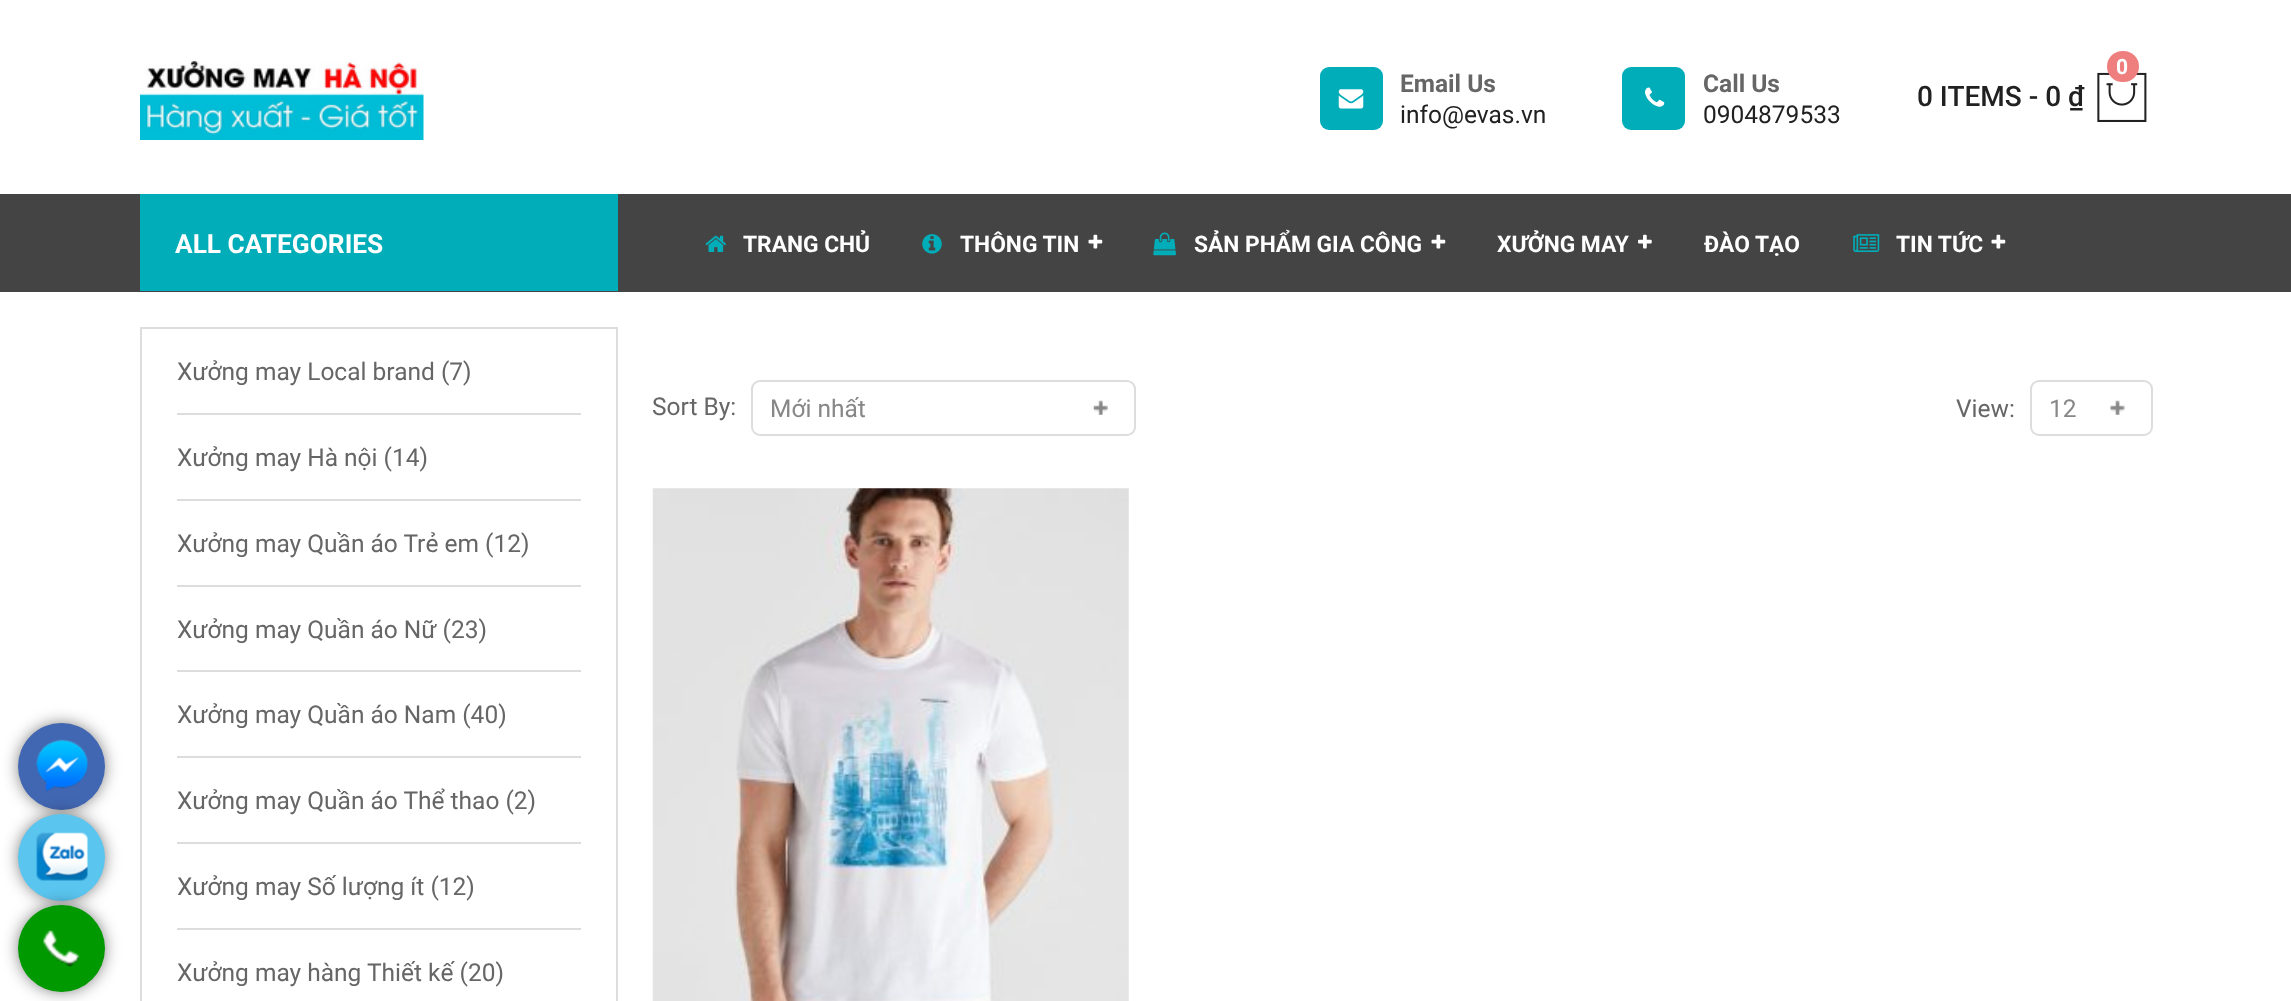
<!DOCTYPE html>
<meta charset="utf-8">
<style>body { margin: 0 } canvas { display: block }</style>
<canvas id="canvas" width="2291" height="1001"></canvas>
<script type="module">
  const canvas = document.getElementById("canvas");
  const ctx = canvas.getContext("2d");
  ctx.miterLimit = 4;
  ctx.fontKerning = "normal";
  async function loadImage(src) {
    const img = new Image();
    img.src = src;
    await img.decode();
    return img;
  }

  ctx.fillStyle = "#ffffff";
  ctx.fillRect(0, 0, 2291, 1001);
  ctx.fillStyle = "rgba(0, 0, 0, 0.7)";
  ctx.filter = "blur(9px)";
  ctx.beginPath();
  ctx.roundRect(21, 726, 81, 81, 40.5);
  ctx.fill();
  ctx.filter = "none";
  ctx.fillStyle = "#4267b2";
  ctx.beginPath();
  ctx.arc(61.5, 766.5, 43.5, 0, Math.PI * 2);
  ctx.fill();
  ctx.fillStyle = "rgba(0, 0, 0, 0.7)";
  ctx.filter = "blur(9px)";
  ctx.beginPath();
  ctx.roundRect(21, 817, 81, 81, 40.5);
  ctx.fill();
  ctx.filter = "none";
  ctx.drawImage(await loadImage("img1.png"), 36, 739, 52, 53);
  ctx.fillStyle = "#5ac5ef";
  ctx.beginPath();
  ctx.arc(61.5, 857.5, 43.5, 0, Math.PI * 2);
  ctx.fill();
  ctx.drawImage(await loadImage("img2.png"), 36, 832, 52, 49);
  ctx.fillStyle = "rgba(0, 0, 0, 0.7)";
  ctx.filter = "blur(9px)";
  ctx.beginPath();
  ctx.roundRect(21, 908, 81, 81, 40.5);
  ctx.fill();
  ctx.filter = "none";
  ctx.fillStyle = "#009900";
  ctx.beginPath();
  ctx.arc(61.5, 948.5, 43.5, 0, Math.PI * 2);
  ctx.fill();
  ctx.drawImage(await loadImage("img3.png"), 43, 930, 37, 37);
  ctx.drawImage(await loadImage("img4.png"), 140, 60, 284, 80);
  ctx.fillStyle = "#00adb8";
  ctx.beginPath();
  ctx.roundRect(1320, 67, 63, 63, 9);
  ctx.fill();
  ctx.drawImage(await loadImage("img5.png"), 1338, 89, 26, 20);
  ctx.font = "bold 24.5px Roboto";
  ctx.fillStyle = "#666666";
  ctx.fillText("Email Us", 1400, 92);
  ctx.font = "24.5px Roboto";
  ctx.fillStyle = "#212121";
  ctx.fillText("info@evas.vn", 1400, 123);
  ctx.fillStyle = "#00adb8";
  ctx.beginPath();
  ctx.roundRect(1622, 67, 63, 63, 9);
  ctx.fill();
  ctx.drawImage(await loadImage("img6.png"), 1645, 87, 20, 20);
  ctx.font = "bold 24.5px Roboto";
  ctx.fillStyle = "#666666";
  ctx.fillText("Call Us", 1703, 92);
  ctx.font = "24.5px Roboto";
  ctx.fillStyle = "#212121";
  ctx.fillText("0904879533", 1703, 123);
  ctx.drawImage(await loadImage("img7.png"), 2097, 72, 50, 50);
  ctx.fillStyle = "#ef7e7e";
  ctx.beginPath();
  ctx.roundRect(2107, 51, 32, 31, 15.5);
  ctx.fill();
  ctx.font = "bold 21px Roboto";
  ctx.fillStyle = "#ffffff";
  ctx.fillText("0", 2116, 74);
  ctx.font = "500 28px Roboto";
  ctx.fillStyle = "#212121";
  ctx.fillText("0 ITEMS - 0 ₫", 1917, 106);
  ctx.fillStyle = "#444444";
  ctx.fillRect(0, 194, 2291, 98);
  ctx.fillStyle = "#00adb8";
  ctx.fillRect(140, 194, 478, 97);
  ctx.font = "bold 26.25px Roboto";
  ctx.fillStyle = "#ffffff";
  ctx.fillText("ALL CATEGORIES", 175, 253);
  ctx.drawImage(await loadImage("img8.png"), 705, 235, 21, 17);
  ctx.font = "bold 22.75px Roboto";
  ctx.fillText("TRANG CHỦ", 743, 252);
  ctx.drawImage(await loadImage("img9.png"), 922, 234, 20, 20);
  ctx.fillText("THÔNG TIN", 960, 252);
  ctx.drawImage(await loadImage("img10.png"), 1088, 234, 15, 15);
  ctx.drawImage(await loadImage("img11.png"), 1153, 232, 23, 24);
  ctx.fillText("SẢN PHẨM GIA CÔNG", 1194, 252);
  ctx.drawImage(await loadImage("img10.png"), 1431, 234, 15, 15);
  ctx.fillText("XƯỞNG MAY", 1497, 252);
  ctx.drawImage(await loadImage("img12.png"), 1638, 234, 14, 15);
  ctx.fillText("ĐÀO TẠO", 1704, 252);
  ctx.drawImage(await loadImage("img13.png"), 1853, 234, 27, 18);
  ctx.fillText("TIN TỨC", 1896, 252);
  ctx.drawImage(await loadImage("img10.png"), 1991, 234, 15, 15);
  ctx.strokeStyle = "#dddddd";
  ctx.lineWidth = 2;
  ctx.strokeRect(141, 328, 476, 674);
  ctx.font = "24.5px Roboto";
  ctx.fillStyle = "#666666";
  ctx.fillText("Xưởng may Local brand (7)", 177, 380);
  ctx.fillStyle = "#dddddd";
  ctx.fillRect(177, 413, 404, 2);
  ctx.fillStyle = "#666666";
  ctx.fillText("Xưởng may Hà nội (14)", 177, 466);
  ctx.fillStyle = "#dddddd";
  ctx.fillRect(177, 499, 404, 2);
  ctx.fillStyle = "#666666";
  ctx.fillText("Xưởng may Quần áo Trẻ em (12)", 177, 552);
  ctx.fillStyle = "#dddddd";
  ctx.fillRect(177, 585, 404, 2);
  ctx.fillStyle = "#666666";
  ctx.fillText("Xưởng may Quần áo Nữ (23)", 177, 638);
  ctx.fillStyle = "#dddddd";
  ctx.fillRect(177, 670, 404, 2);
  ctx.fillStyle = "#666666";
  ctx.fillText("Xưởng may Quần áo Nam (40)", 177, 723);
  ctx.fillStyle = "#dddddd";
  ctx.fillRect(177, 756, 404, 2);
  ctx.fillStyle = "#666666";
  ctx.fillText("Xưởng may Quần áo Thể thao (2)", 177, 809);
  ctx.fillStyle = "#dddddd";
  ctx.fillRect(177, 842, 404, 2);
  ctx.fillStyle = "#666666";
  ctx.fillText("Xưởng may Số lượng ít (12)", 177, 895);
  ctx.fillStyle = "#dddddd";
  ctx.fillRect(177, 928, 404, 2);
  ctx.fillStyle = "#666666";
  ctx.fillText("Xưởng may hàng Thiết kế (20)", 177, 981);
  ctx.fillText("Sort By:", 652, 415);
  ctx.drawImage(await loadImage("img14.png"), 1093, 400, 15, 15);
  ctx.beginPath();
  ctx.roundRect(752, 381, 383, 54, 8);
  ctx.stroke();
  ctx.fillStyle = "#878787";
  ctx.fillText("Mới nhất", 770, 417);
  ctx.fillStyle = "#666666";
  ctx.fillText("View:", 1956, 417);
  ctx.drawImage(await loadImage("img15.png"), 2110, 400, 15, 15);
  ctx.beginPath();
  ctx.roundRect(2031, 381, 121, 54, 8);
  ctx.stroke();
  ctx.fillStyle = "#878787";
  ctx.fillText("12", 2049, 417);
  ctx.drawImage(await loadImage("img16.png"), 652, 488, 477, 513);
</script>
